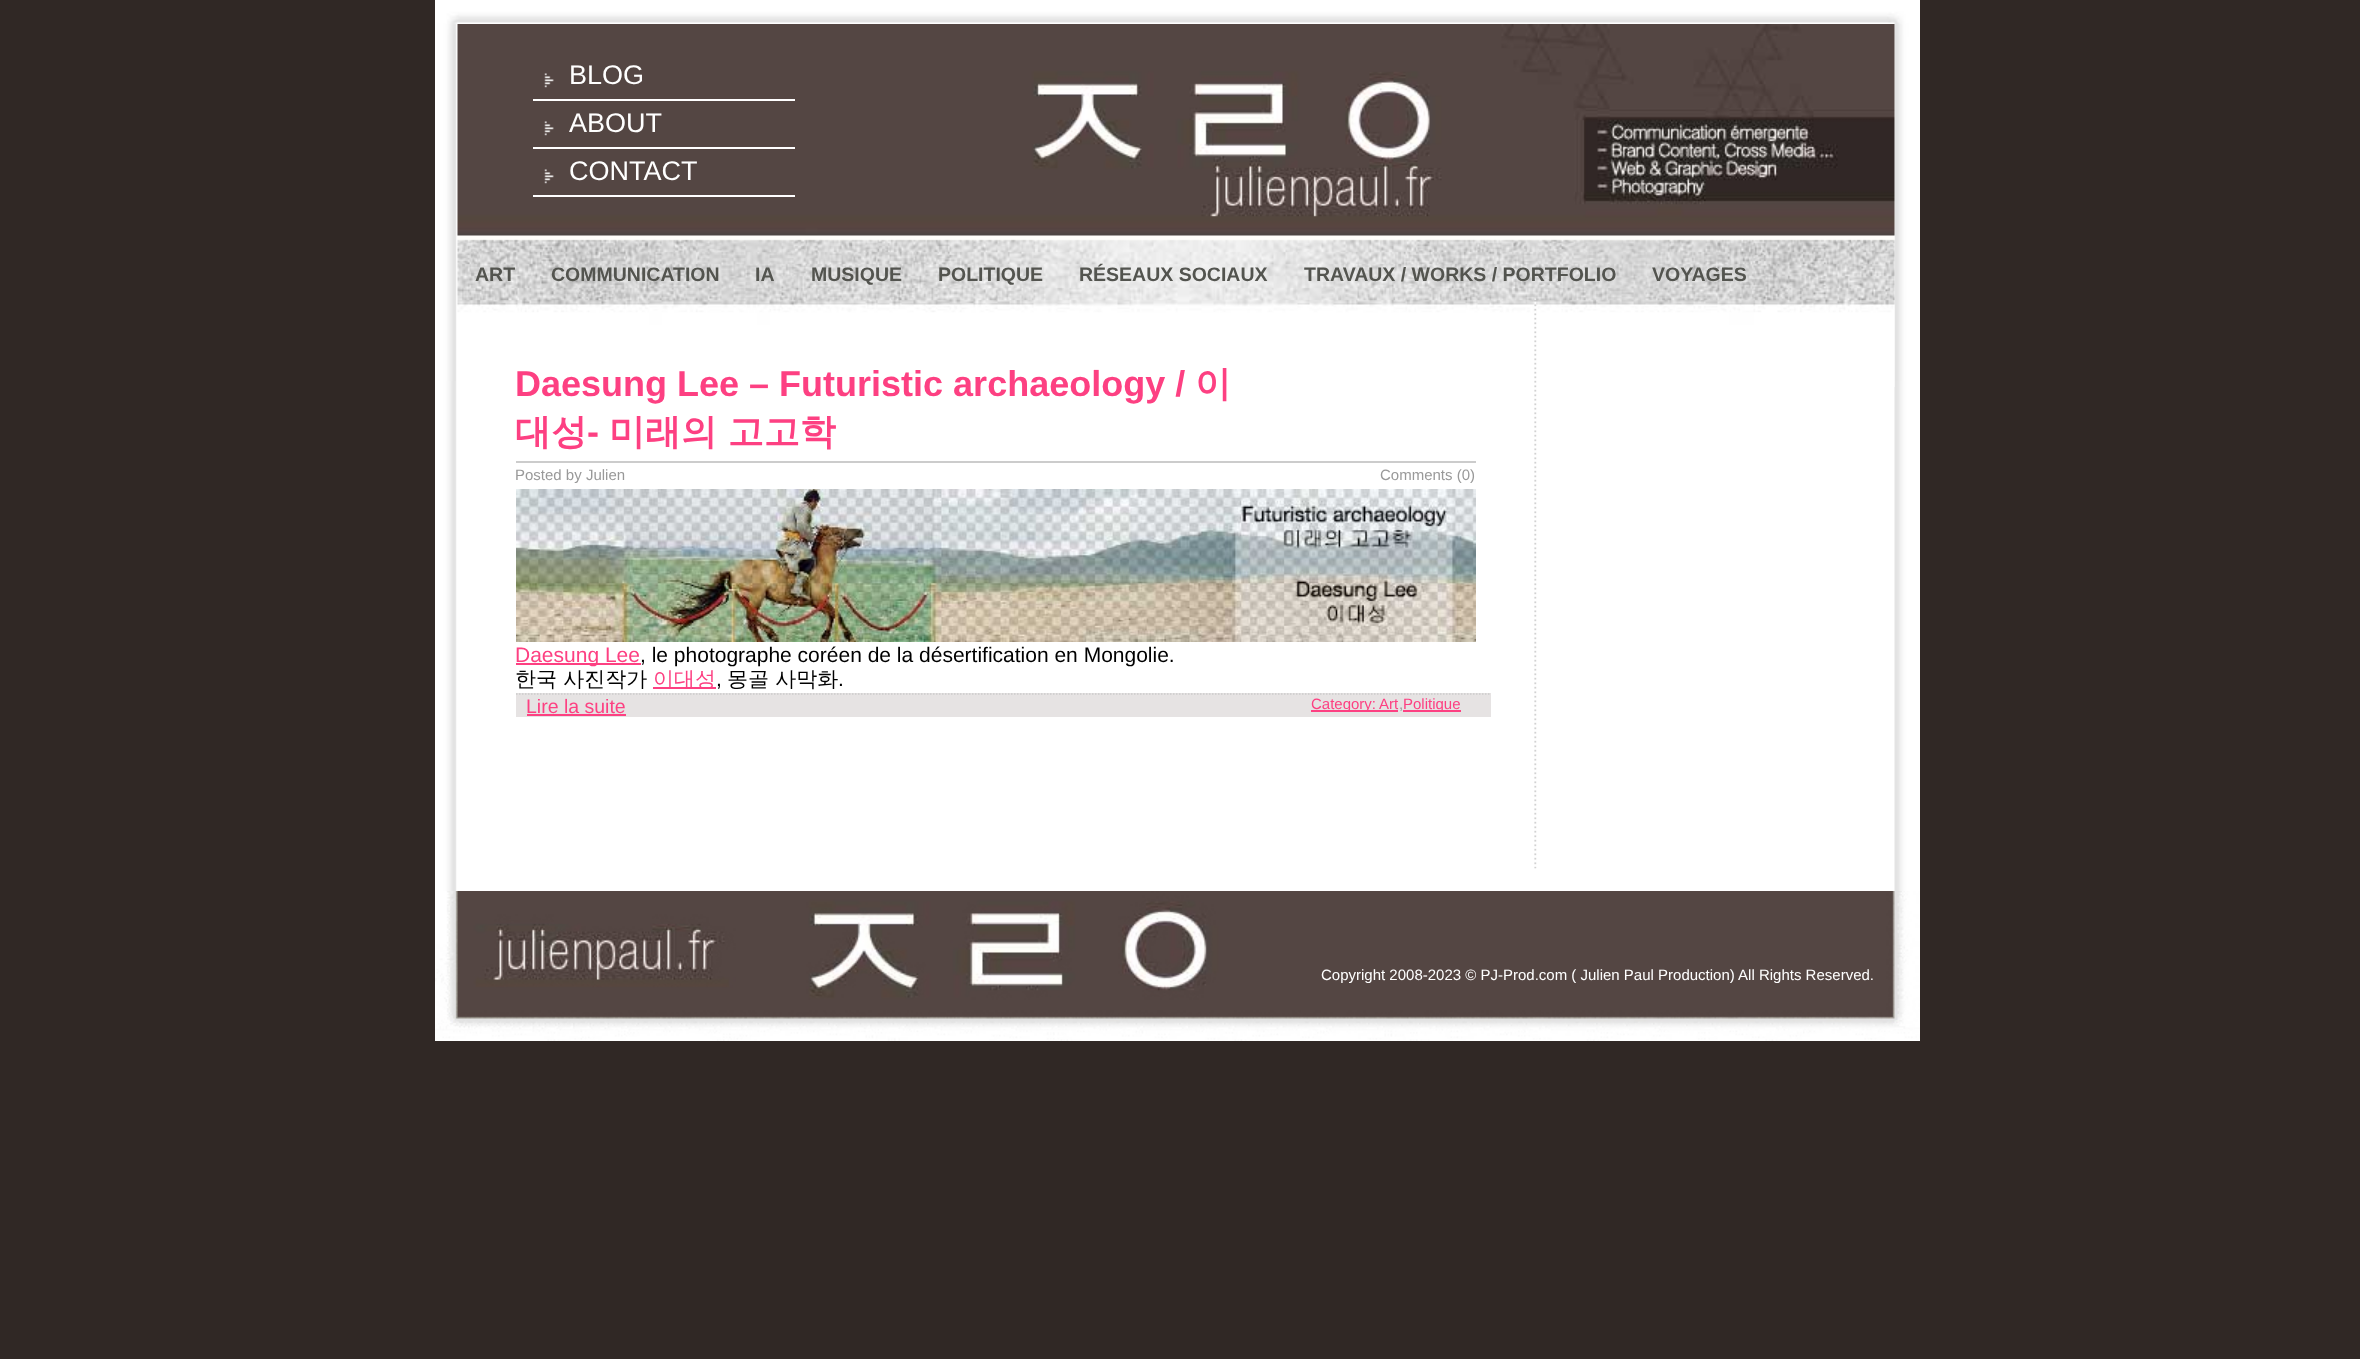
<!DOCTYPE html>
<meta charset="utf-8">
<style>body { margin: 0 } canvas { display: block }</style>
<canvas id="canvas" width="2360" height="1359"></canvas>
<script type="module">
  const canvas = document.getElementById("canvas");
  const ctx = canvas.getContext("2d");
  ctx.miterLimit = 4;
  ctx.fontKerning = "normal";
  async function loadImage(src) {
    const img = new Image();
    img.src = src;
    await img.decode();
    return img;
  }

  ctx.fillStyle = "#302825";
  ctx.fillRect(0, 0, 2360, 1359);
  ctx.drawImage(await loadImage("img1.png"), 435, 0, 1485, 381);
  ctx.drawImage(await loadImage("img4.png"), 435, 381, 1485, 510);
  ctx.drawImage(await loadImage("img2.png"), 457, 24, 1438, 363);
  ctx.fillStyle = "#ffffff";
  ctx.fillRect(533, 99, 262, 2);
  ctx.drawImage(await loadImage("img3.png"), 544, 73, 10, 15);
  ctx.font = "27px Liberation Sans";
  ctx.fillText("BLOG", 569, 84);
  ctx.fillRect(533, 147, 262, 2);
  ctx.drawImage(await loadImage("img3.png"), 544, 121, 10, 15);
  ctx.fillText("ABOUT", 569, 132);
  ctx.fillRect(533, 195, 262, 2);
  ctx.drawImage(await loadImage("img3.png"), 544, 169, 10, 15);
  ctx.fillText("CONTACT", 569, 180);
  ctx.font = "bold 19.5px Liberation Sans";
  ctx.fillStyle = "#53544f";
  ctx.fillText("ART", 475, 281);
  ctx.fillText("COMMUNICATION", 551, 281);
  ctx.fillText("IA", 755, 281);
  ctx.fillText("MUSIQUE", 811, 281);
  ctx.fillText("POLITIQUE", 938, 281);
  ctx.fillText("RÉSEAUX SOCIAUX", 1079, 281);
  ctx.fillText("TRAVAUX / WORKS / PORTFOLIO", 1304, 281);
  ctx.fillText("VOYAGES", 1652, 281);
  ctx.drawImage(await loadImage("img5.png"), 1534, 298, 3, 571);
  ctx.font = "bold 36px Liberation Sans";
  ctx.fillStyle = "#fd4082";
  ctx.fillText("Daesung Lee – Futuristic archaeology /", 515, 396);
  ctx.font = "bold 36px WenQuanYi Zen Hei";
  ctx.fillText("이", 1195, 396);
  ctx.fillText("대성", 515, 444);
  ctx.font = "bold 36px Liberation Sans";
  ctx.fillText("-", 587, 444);
  ctx.font = "bold 36px WenQuanYi Zen Hei";
  ctx.fillText("미래의 고고학", 609, 444);
  ctx.fillStyle = "#cccccc";
  ctx.fillRect(516, 461, 960, 2);
  ctx.font = "15px Liberation Sans";
  ctx.fillStyle = "#999999";
  ctx.fillText("Posted by Julien", 515, 480);
  ctx.fillText("Comments (0)", 1380, 480);
  ctx.drawImage(await loadImage("img6.png"), 516, 489, 960, 153);
  ctx.fillStyle = "#fd4082";
  ctx.fillRect(516, 663, 125, 2);
  ctx.font = "21px Liberation Sans";
  ctx.fillText("Daesung Lee", 515, 662);
  ctx.fillStyle = "#000000";
  ctx.fillText(", le photographe coréen de la désertification en Mongolie.", 640, 662);
  ctx.font = "500 21px WenQuanYi Zen Hei";
  ctx.fillText("한국 사진작가", 515, 686);
  ctx.fillStyle = "#fd4082";
  ctx.fillRect(653, 687, 63, 2);
  ctx.fillText("이대성", 653, 686);
  ctx.font = "21px Liberation Sans";
  ctx.fillStyle = "#000000";
  ctx.fillText(",", 716, 686);
  ctx.font = "500 21px WenQuanYi Zen Hei";
  ctx.fillText("몽골 사막화", 727, 686);
  ctx.font = "21px Liberation Sans";
  ctx.fillText(".", 838, 686);
  ctx.fillStyle = "#e6e3e3";
  ctx.fillRect(516, 693, 975, 24);
  ctx.beginPath();
  ctx.moveTo(516, 694);
  ctx.lineTo(1491, 694);
  ctx.strokeStyle = "#cccccc";
  ctx.lineWidth = 1.5;
  ctx.setLineDash([1.5, 1.5]);
  ctx.stroke();
  ctx.font = "19.5px Liberation Sans";
  ctx.fillStyle = "#fd4082";
  ctx.fillText("Lire la suite", 526, 713);
  ctx.fillRect(527, 714, 99, 2);
  ctx.fillRect(1311, 710, 87, 2);
  ctx.font = "15px Liberation Sans";
  ctx.fillText("Category:", 1311, 709);
  ctx.fillText("Art", 1379, 709);
  ctx.fillStyle = "#999999";
  ctx.fillText(",", 1399, 709);
  ctx.fillStyle = "#fd4082";
  ctx.fillRect(1403, 710, 58, 2);
  ctx.fillText("Politique", 1403, 709);
  ctx.drawImage(await loadImage("img7.png"), 435, 891, 1485, 150);
  ctx.fillStyle = "#ffffff";
  ctx.fillText("Copyright 2008-2023 © PJ-Prod.com ( Julien Paul Production) All Rights Reserved.", 1321, 980);
</script>
